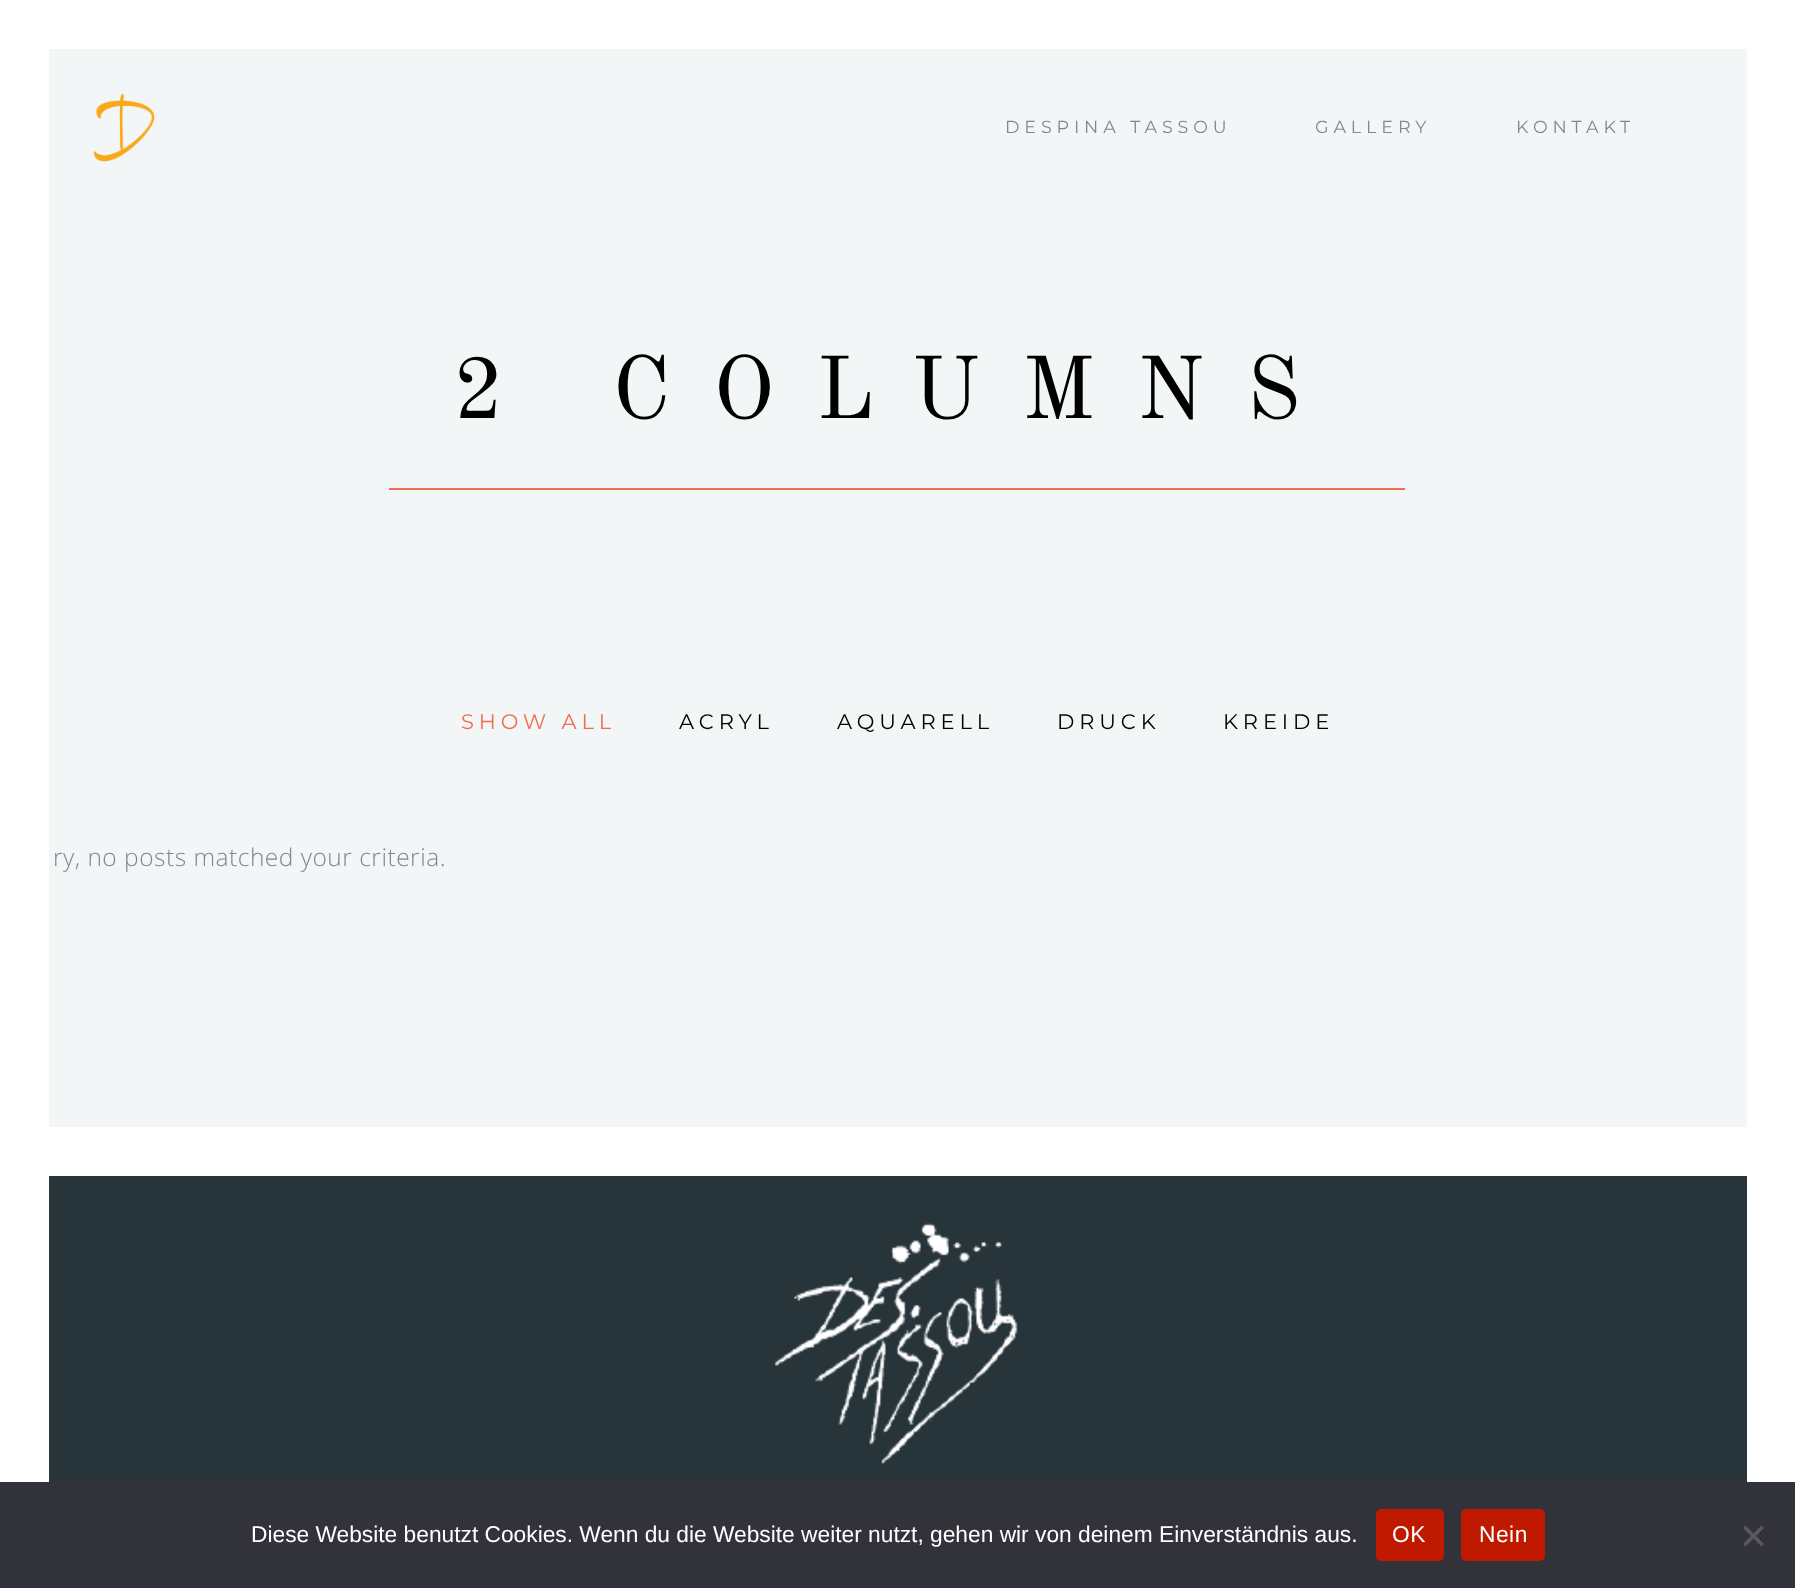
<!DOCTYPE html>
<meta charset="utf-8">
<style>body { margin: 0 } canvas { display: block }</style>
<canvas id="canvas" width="1795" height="1588"></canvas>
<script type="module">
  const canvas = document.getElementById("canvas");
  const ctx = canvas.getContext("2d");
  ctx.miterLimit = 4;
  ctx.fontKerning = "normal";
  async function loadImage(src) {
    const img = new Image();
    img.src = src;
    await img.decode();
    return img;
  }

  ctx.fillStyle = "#f2f6f6";
  ctx.fillRect(0, 0, 1795, 1588);
  ctx.fillStyle = "#ffffff";
  ctx.fillRect(49, 0, 1698, 49);
  ctx.fillRect(0, 0, 49, 1482);
  ctx.drawImage(await loadImage("img1.png"), 93, 93, 62, 69);
  ctx.letterSpacing = "4.9px";
  ctx.font = "17.5px Montserrat";
  ctx.fillStyle = "#83878c";
  ctx.fillText("DESPINA TASSOU", 1005, 133);
  ctx.fillText("GALLERY", 1315, 133);
  ctx.fillText("KONTAKT", 1516, 133);
  ctx.fillStyle = "#ffffff";
  ctx.fillRect(1747, 0, 48, 1482);
  ctx.letterSpacing = "42px";
  ctx.font = "87.5px Old Standard TT";
  ctx.fillStyle = "#000000";
  ctx.fillText("2 COLUMNS", 453, 418);
  ctx.fillStyle = "#f26c4f";
  ctx.fillRect(389, 488, 1016, 2);
  ctx.letterSpacing = "4.9px";
  ctx.font = "21px Montserrat";
  ctx.fillText("SHOW ALL", 461, 729);
  ctx.fillStyle = "#000000";
  ctx.fillText("ACRYL", 679, 729);
  ctx.fillText("AQUARELL", 837, 729);
  ctx.fillText("DRUCK", 1057, 729);
  ctx.fillText("KREIDE", 1223, 729);
  ctx.letterSpacing = "0.5px";
  ctx.font = "300 24.5px Open Sans";
  ctx.fillStyle = "#83878c";
  ctx.fillText("ry, no posts matched your criteria.", 53, 866);
  ctx.fillStyle = "#ffffff";
  ctx.fillRect(49, 1127, 1698, 49);
  ctx.fillStyle = "#27353a";
  ctx.fillRect(49, 1176, 1698, 306);
  ctx.drawImage(await loadImage("img2.png"), 774, 1223, 244, 241);
  ctx.fillStyle = "#32323a";
  ctx.fillRect(0, 1482, 1795, 106);
  ctx.letterSpacing = "0px";
  ctx.font = "22.75px Liberation Sans";
  ctx.fillStyle = "#ffffff";
  ctx.fillText("Diese Website benutzt Cookies. Wenn du die Website weiter nutzt, gehen wir von deinem Einverständnis aus.", 251, 1542);
  ctx.fillStyle = "#bf1900";
  ctx.beginPath();
  ctx.roundRect(1376, 1509, 68, 52, 5);
  ctx.fill();
  ctx.letterSpacing = "0.5px";
  ctx.fillStyle = "#ffffff";
  ctx.fillText("OK", 1392, 1542);
  ctx.fillStyle = "#bf1900";
  ctx.beginPath();
  ctx.roundRect(1461, 1509, 84, 52, 5);
  ctx.fill();
  ctx.fillStyle = "#ffffff";
  ctx.fillText("Nein", 1479, 1542);
  ctx.fillStyle = "#59595d";
  ctx.beginPath();
  ctx.moveTo(1761.5, 1525.5);
  ctx.lineTo(1764, 1528);
  ctx.lineTo(1745.5, 1546.5);
  ctx.lineTo(1743, 1544);
  ctx.closePath();
  ctx.fill();
  ctx.beginPath();
  ctx.moveTo(1743, 1528);
  ctx.lineTo(1745.5, 1525.5);
  ctx.lineTo(1764, 1544);
  ctx.lineTo(1761.5, 1546.5);
  ctx.closePath();
  ctx.fill();
</script>
